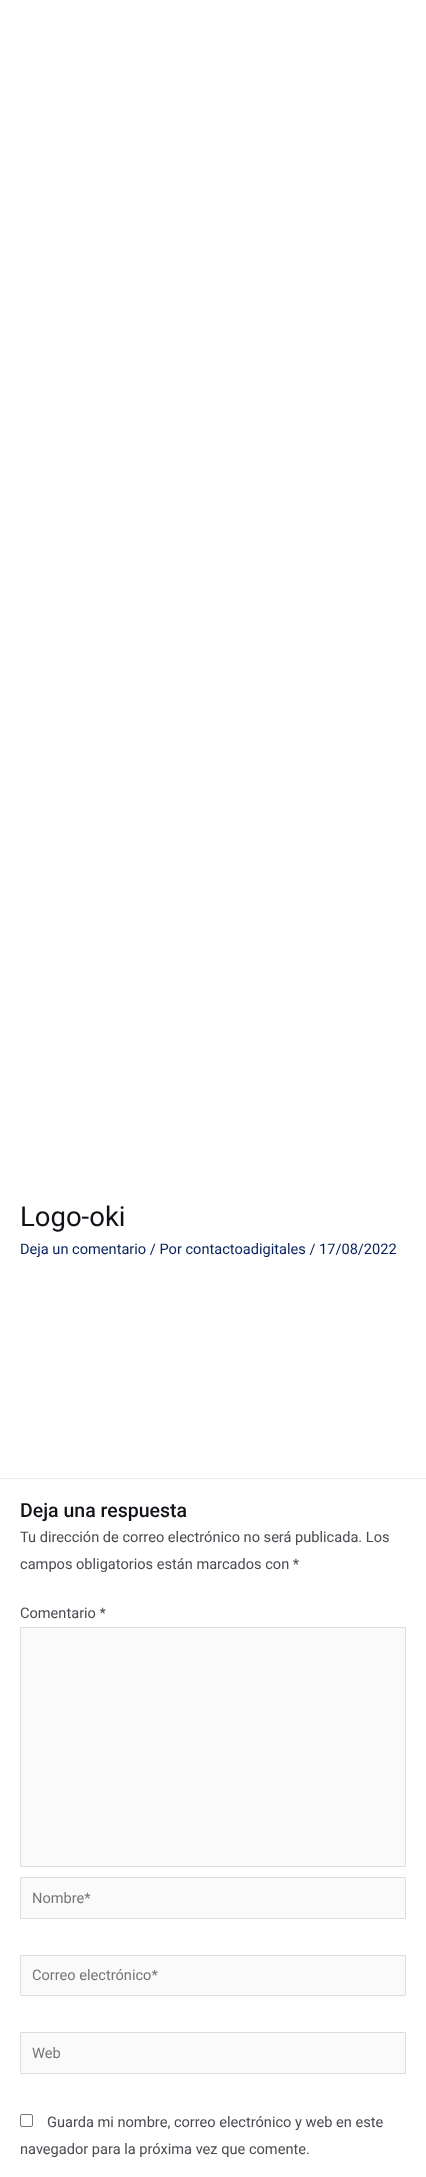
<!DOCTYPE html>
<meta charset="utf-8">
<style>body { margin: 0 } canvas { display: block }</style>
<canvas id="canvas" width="426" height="2177"></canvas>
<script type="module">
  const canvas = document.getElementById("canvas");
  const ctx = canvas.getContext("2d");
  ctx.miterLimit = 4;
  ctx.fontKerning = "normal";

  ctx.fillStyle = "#ffffff";
  ctx.fillRect(0, 0, 426, 2177);
  ctx.font = "27.5px Roboto";
  ctx.fillStyle = "#101218";
  ctx.fillText("Logo-oki", 20, 1226);
  ctx.font = "14.6px Roboto";
  ctx.fillStyle = "#06205c";
  ctx.fillText("Deja un comentario / Por contactoadigitales / 17/08/2022", 20, 1254);
  ctx.fillStyle = "#eeeeee";
  ctx.fillRect(0, 1478, 426, 1);
  ctx.font = "500 19.5px Roboto";
  ctx.fillStyle = "#101218";
  ctx.fillText("Deja una respuesta", 20, 1517);
  ctx.font = "14.6px Roboto";
  ctx.fillStyle = "#494b51";
  ctx.fillText("Tu dirección de correo electrónico no será publicada. Los", 20, 1542);
  ctx.fillText("campos obligatorios están marcados con *", 20, 1569);
  ctx.fillText("Comentario *", 20, 1618);
  ctx.fillStyle = "#fafafa";
  ctx.beginPath();
  ctx.rect(20.5, 1627.5, 385, 239);
  ctx.fill();
  ctx.strokeStyle = "#dddddd";
  ctx.stroke();
  ctx.beginPath();
  ctx.rect(20.5, 1877.5, 385, 41);
  ctx.fill();
  ctx.stroke();
  ctx.fillStyle = "#757575";
  ctx.fillText("Nombre*", 32, 1903);
  ctx.fillStyle = "#fafafa";
  ctx.beginPath();
  ctx.rect(20.5, 1955.5, 385, 40);
  ctx.fill();
  ctx.stroke();
  ctx.fillStyle = "#757575";
  ctx.fillText("Correo electrónico*", 32, 1980);
  ctx.fillStyle = "#fafafa";
  ctx.beginPath();
  ctx.rect(20.5, 2032.5, 385, 41);
  ctx.fill();
  ctx.stroke();
  ctx.fillStyle = "#757575";
  ctx.fillText("Web", 32, 2058);
  ctx.beginPath();
  ctx.roundRect(20.5, 2114.5, 12, 12, 1.5);
  ctx.strokeStyle = "#767676";
  ctx.stroke();
  ctx.fillStyle = "#494b51";
  ctx.fillText("Guarda mi nombre, correo electrónico y web en este", 47, 2127);
  ctx.fillText("navegador para la próxima vez que comente.", 20, 2154);
</script>
